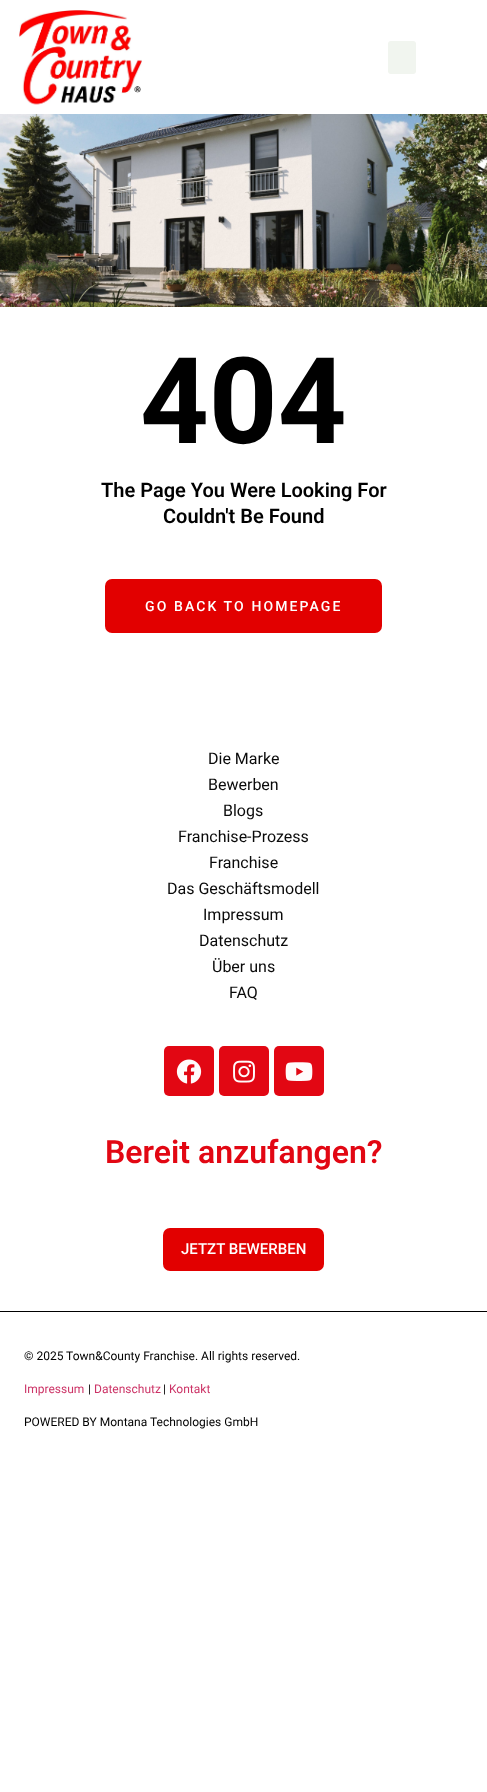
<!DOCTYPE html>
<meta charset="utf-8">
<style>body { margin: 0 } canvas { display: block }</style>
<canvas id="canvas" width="487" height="1792"></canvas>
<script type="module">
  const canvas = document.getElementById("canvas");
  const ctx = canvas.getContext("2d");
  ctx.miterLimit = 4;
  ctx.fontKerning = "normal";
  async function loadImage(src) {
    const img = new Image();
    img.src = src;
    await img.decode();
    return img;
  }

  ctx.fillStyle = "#ffffff";
  ctx.fillRect(0, 0, 487, 1792);
  ctx.drawImage(await loadImage("img1.png"), 19, 10, 123, 95);
  ctx.fillStyle = "#f1f5ef";
  ctx.beginPath();
  ctx.roundRect(388, 41, 28, 33, 3);
  ctx.fill();
  ctx.drawImage(await loadImage("img2.png"), 0, 114, 487, 193);
  ctx.font = "bold 120px Roboto";
  ctx.fillStyle = "#000000";
  ctx.fillText("404", 140, 443);
  ctx.font = "600 20px Roboto";
  ctx.fillText("The Page You Were Looking For", 101, 497);
  ctx.fillText("Couldn't Be Found", 163, 523);
  ctx.fillStyle = "#e20000";
  ctx.beginPath();
  ctx.roundRect(105, 579, 277, 54, 7);
  ctx.fill();
  ctx.letterSpacing = "2.1px";
  ctx.font = "500 14px Roboto";
  ctx.fillStyle = "#ffffff";
  ctx.fillText("GO BACK TO HOMEPAGE", 145, 611);
  ctx.letterSpacing = "0px";
  ctx.font = "16px Roboto";
  ctx.fillStyle = "#0a0a0a";
  ctx.fillText("Die Marke", 208, 764);
  ctx.fillText("Bewerben", 208, 790);
  ctx.fillText("Blogs", 223, 816);
  ctx.fillText("Franchise-Prozess", 178, 842);
  ctx.fillText("Franchise", 209, 868);
  ctx.fillText("Das Geschäftsmodell", 167, 894);
  ctx.fillText("Impressum", 203, 920);
  ctx.fillText("Datenschutz", 199, 946);
  ctx.fillText("Über uns", 212, 972);
  ctx.fillText("FAQ", 229, 998);
  ctx.fillStyle = "#e20713";
  ctx.beginPath();
  ctx.roundRect(164, 1046, 50, 50, 5);
  ctx.fill();
  ctx.drawImage(await loadImage("img3.png"), 176, 1059, 26, 25);
  ctx.beginPath();
  ctx.roundRect(219, 1046, 50, 50, 5);
  ctx.fill();
  ctx.drawImage(await loadImage("img4.png"), 233, 1060, 22, 23);
  ctx.beginPath();
  ctx.roundRect(274, 1046, 50, 50, 5);
  ctx.fill();
  ctx.drawImage(await loadImage("img5.png"), 285, 1062, 28, 19);
  ctx.font = "600 32px Roboto";
  ctx.fillText("Bereit anzufangen?", 105, 1163);
  ctx.fillStyle = "#e20000";
  ctx.beginPath();
  ctx.roundRect(163, 1228, 161, 43, 7);
  ctx.fill();
  ctx.font = "500 15px Roboto";
  ctx.fillStyle = "#ffffff";
  ctx.fillText("JETZT BEWERBEN", 181, 1254);
  ctx.fillStyle = "#000000";
  ctx.fillRect(0, 1311, 487, 1);
  ctx.font = "12px Roboto";
  ctx.fillText("© 2025 Town&County Franchise. All rights reserved.", 24, 1360);
  ctx.fillStyle = "#cc3366";
  ctx.fillText("Impressum", 24, 1393);
  ctx.fillStyle = "#000000";
  ctx.fillText("|", 88, 1393);
  ctx.fillStyle = "#cc3366";
  ctx.fillText("Datenschutz", 94, 1393);
  ctx.fillStyle = "#000000";
  ctx.fillText("|", 163, 1393);
  ctx.fillStyle = "#cc3366";
  ctx.fillText("Kontakt", 169, 1393);
  ctx.fillStyle = "#000000";
  ctx.fillText("POWERED BY Montana Technologies GmbH", 24, 1426);
</script>
